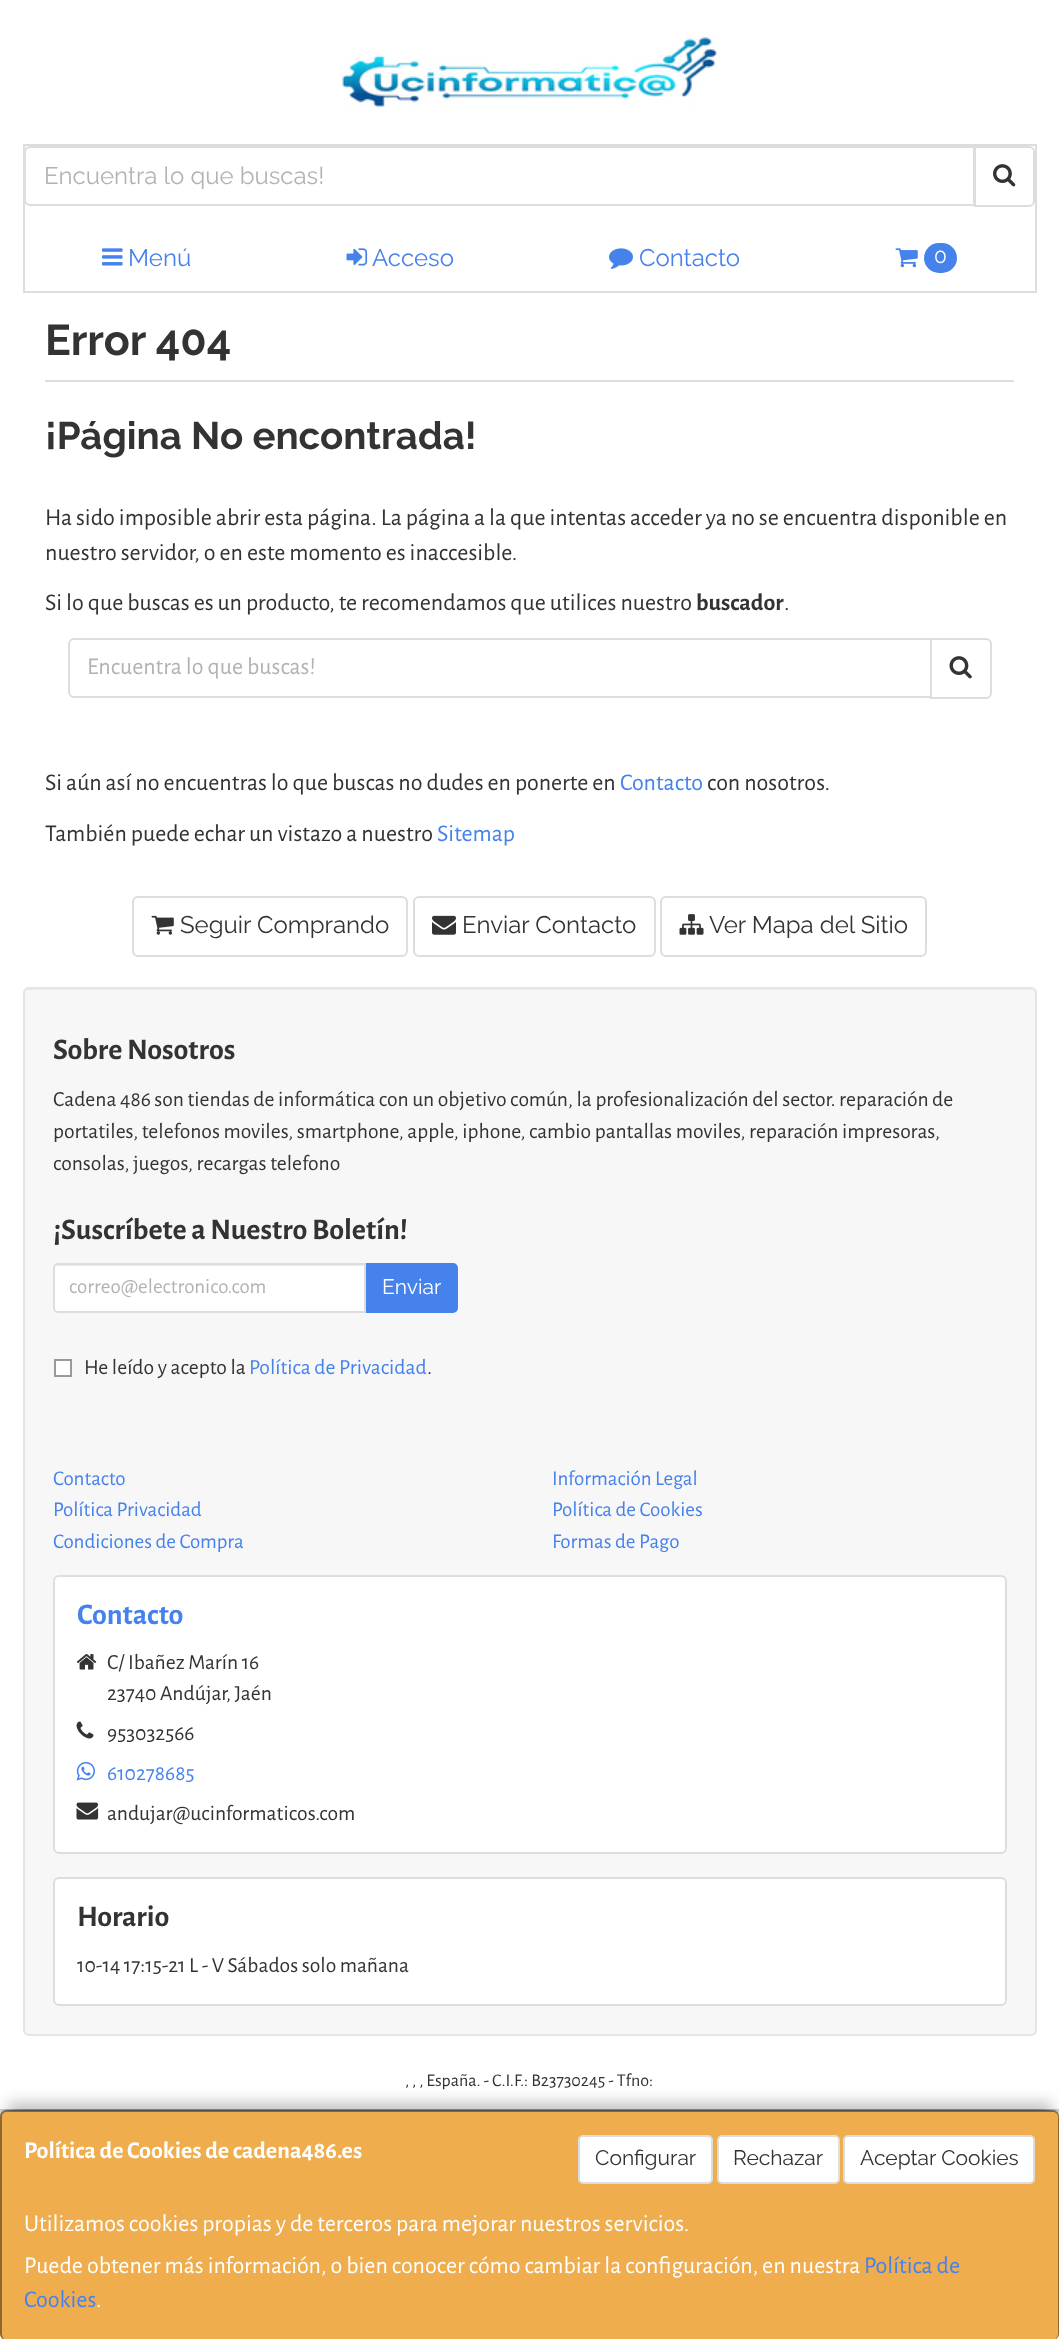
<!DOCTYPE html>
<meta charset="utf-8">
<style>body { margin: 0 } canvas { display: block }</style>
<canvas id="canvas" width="1059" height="2339"></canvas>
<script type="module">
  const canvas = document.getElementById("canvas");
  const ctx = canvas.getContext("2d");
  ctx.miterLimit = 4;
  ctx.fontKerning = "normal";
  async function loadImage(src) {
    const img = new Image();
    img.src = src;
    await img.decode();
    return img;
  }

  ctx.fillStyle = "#ffffff";
  ctx.fillRect(0, 0, 1059, 2339);
  ctx.save();
  ctx.beginPath();
  ctx.rect(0, 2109, 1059, 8);
  ctx.clip();
  ctx.fillStyle = "rgba(0, 0, 0, 0.75)";
  ctx.filter = "blur(11px)";
  ctx.beginPath();
  ctx.rect(0, 0, 1059, 2109);
  ctx.fill();
  ctx.filter = "none";
  ctx.restore();
  ctx.drawImage(await loadImage("img1.png"), 341, 37, 377, 70);
  ctx.strokeStyle = "#dddddd";
  ctx.lineWidth = 2;
  ctx.strokeRect(24, 145, 1012, 147);
  ctx.beginPath();
  ctx.roundRect(975, 147, 59, 59, [0, 5, 5, 0]);
  ctx.stroke();
  ctx.beginPath();
  ctx.roundRect(24, 146, 951, 60, [6, 0, 0, 6]);
  ctx.fill();
  ctx.fillStyle = "#ececec";
  ctx.beginPath();
  ctx.moveTo(30, 148);
  ctx.lineTo(974, 148);
  ctx.lineTo(974, 147);
  ctx.lineTo(31, 147);
  ctx.bezierCurveTo(28, 147, 26, 150, 26, 153);
  ctx.bezierCurveTo(26, 151, 28, 148, 30, 148);
  ctx.closePath();
  ctx.fill();
  ctx.beginPath();
  ctx.roundRect(25, 147, 949, 58, [5, 0, 0, 5]);
  ctx.stroke();
  ctx.font = "24px Raleway";
  ctx.fillStyle = "#b3b3b3";
  ctx.fillText("Encuentra lo que buscas!", 44, 184);
  ctx.drawImage(await loadImage("img2.png"), 993, 164, 23, 23);
  ctx.drawImage(await loadImage("img3.png"), 102, 248, 21, 18);
  ctx.fillStyle = "#4582ec";
  ctx.fillText("Menú", 128, 266);
  ctx.drawImage(await loadImage("img4.png"), 346, 248, 22, 18);
  ctx.fillText("Acceso", 372, 266);
  ctx.drawImage(await loadImage("img5.png"), 609, 248, 24, 21);
  ctx.fillText("Contacto", 639, 266);
  ctx.drawImage(await loadImage("img6.png"), 895, 248, 23, 20);
  ctx.beginPath();
  ctx.roundRect(924, 243, 33, 30, 15);
  ctx.fill();
  ctx.font = "21px Raleway";
  ctx.fillStyle = "#ffffff";
  ctx.fillText("0", 934, 263);
  ctx.fillStyle = "#dddddd";
  ctx.fillRect(45, 380, 969, 2);
  ctx.font = "bold 43px Raleway";
  ctx.fillStyle = "#333333";
  ctx.fillText("Error 404", 45, 355);
  ctx.font = "bold 38.4px Raleway";
  ctx.fillText("¡Página No encontrada!", 45, 449);
  ctx.font = "24px Alegreya Sans";
  ctx.fillText("Ha sido imposible abrir esta página. La página a la que intentas acceder ya no se encuentra disponible en", 45, 525);
  ctx.fillText("nuestro servidor, o en este momento es inaccesible.", 45, 560);
  ctx.fillText("Si lo que buscas es un producto, te recomendamos que utilices nuestro", 45, 610);
  ctx.font = "bold 24px Alegreya Sans";
  ctx.fillText("buscador", 696, 610);
  ctx.font = "24px Alegreya Sans";
  ctx.fillText(".", 784, 610);
  ctx.beginPath();
  ctx.roundRect(931, 639, 60, 59, [0, 5, 5, 0]);
  ctx.stroke();
  ctx.fillStyle = "#ffffff";
  ctx.beginPath();
  ctx.roundRect(69, 639, 862, 58, [5, 0, 0, 5]);
  ctx.fill();
  ctx.stroke();
  ctx.fillStyle = "#b3b3b3";
  ctx.fillText("Encuentra lo que buscas!", 87, 674);
  ctx.drawImage(await loadImage("img7.png"), 949, 656, 23, 23);
  ctx.fillStyle = "#333333";
  ctx.fillText("Si aún así no encuentras lo que buscas no dudes en ponerte en", 45, 790);
  ctx.fillStyle = "#4582ec";
  ctx.fillText("Contacto", 620, 790);
  ctx.fillStyle = "#333333";
  ctx.fillText("con nosotros.", 707, 790);
  ctx.fillText("También puede echar un vistazo a nuestro", 45, 841);
  ctx.fillStyle = "#4582ec";
  ctx.fillText("Sitemap", 437, 841);
  ctx.beginPath();
  ctx.roundRect(133, 897, 274, 59, 5);
  ctx.stroke();
  ctx.drawImage(await loadImage("img8.png"), 151, 915, 23, 20);
  ctx.font = "24px Raleway";
  ctx.fillStyle = "#333333";
  ctx.fillText("Seguir Comprando", 180, 933);
  ctx.beginPath();
  ctx.roundRect(414, 897, 241, 59, 5);
  ctx.stroke();
  ctx.drawImage(await loadImage("img9.png"), 432, 915, 24, 20);
  ctx.fillText("Enviar Contacto", 462, 933);
  ctx.beginPath();
  ctx.roundRect(661, 897, 265, 59, 5);
  ctx.stroke();
  ctx.drawImage(await loadImage("img10.png"), 679, 914, 25, 21);
  ctx.fillText("Ver Mapa del Sitio", 709, 933);
  ctx.fillStyle = "#f7f7f7";
  ctx.beginPath();
  ctx.roundRect(23, 987, 1014, 1049, 6);
  ctx.fill();
  ctx.fillStyle = "#ebebeb";
  ctx.beginPath();
  ctx.moveTo(28, 990);
  ctx.lineTo(1030, 990);
  ctx.bezierCurveTo(1033, 990, 1035, 992, 1035, 994);
  ctx.bezierCurveTo(1035, 991, 1033, 989, 1030, 989);
  ctx.lineTo(29, 989);
  ctx.bezierCurveTo(26, 989, 24, 991, 24, 994);
  ctx.bezierCurveTo(24, 992, 26, 990, 28, 990);
  ctx.closePath();
  ctx.fill();
  ctx.beginPath();
  ctx.roundRect(24, 988, 1012, 1047, 5);
  ctx.strokeStyle = "#e5e5e5";
  ctx.stroke();
  ctx.font = "bold 30px Alegreya Sans";
  ctx.fillStyle = "#333333";
  ctx.fillText("Sobre Nosotros", 53, 1059);
  ctx.font = "21.6px Alegreya Sans";
  ctx.fillText("Cadena 486 son tiendas de informática con un objetivo común, la profesionalización del sector. reparación de", 53, 1106);
  ctx.fillText("portatiles, telefonos moviles, smartphone, apple, iphone, cambio pantallas moviles, reparación impresoras,", 53, 1138);
  ctx.fillText("consolas, juegos, recargas telefono", 53, 1170);
  ctx.font = "bold 30px Alegreya Sans";
  ctx.fillText("¡Suscríbete a Nuestro Boletín!", 53, 1239);
  ctx.fillStyle = "#4582ec";
  ctx.beginPath();
  ctx.roundRect(366, 1264, 91, 48, [0, 4, 4, 0]);
  ctx.fill();
  ctx.strokeStyle = "#4582ec";
  ctx.stroke();
  ctx.fillStyle = "#ffffff";
  ctx.beginPath();
  ctx.roundRect(53, 1263, 313, 50, [5, 0, 0, 5]);
  ctx.fill();
  ctx.fillStyle = "#ececec";
  ctx.beginPath();
  ctx.moveTo(57, 1266);
  ctx.lineTo(364, 1266);
  ctx.lineTo(364, 1311);
  ctx.lineTo(365, 1311);
  ctx.lineTo(365, 1265);
  ctx.lineTo(57, 1265);
  ctx.bezierCurveTo(55, 1265, 54, 1267, 54, 1269);
  ctx.bezierCurveTo(54, 1267, 55, 1266, 57, 1266);
  ctx.closePath();
  ctx.fill();
  ctx.beginPath();
  ctx.roundRect(54, 1264, 311, 48, [4, 0, 0, 4]);
  ctx.strokeStyle = "#dddddd";
  ctx.stroke();
  ctx.font = "21px Alegreya Sans";
  ctx.fillStyle = "#b3b3b3";
  ctx.fillText("correo@electronico.com", 69, 1293);
  ctx.font = "21px Raleway";
  ctx.fillStyle = "#ffffff";
  ctx.fillText("Enviar", 382, 1294);
  ctx.beginPath();
  ctx.rect(55, 1360, 16, 16);
  ctx.fill();
  ctx.strokeStyle = "#999999";
  ctx.stroke();
  ctx.font = "21.6px Alegreya Sans";
  ctx.fillStyle = "#333333";
  ctx.fillText("He leído y acepto la", 84, 1374);
  ctx.fillStyle = "#4582ec";
  ctx.fillText("Política de Privacidad", 249, 1374);
  ctx.fillStyle = "#333333";
  ctx.fillText(".", 427, 1374);
  ctx.font = "21px Alegreya Sans";
  ctx.fillStyle = "#4582ec";
  ctx.fillText("Contacto", 53, 1485);
  ctx.fillText("Información Legal", 552, 1485);
  ctx.fillText("Política Privacidad", 53, 1516);
  ctx.fillText("Política de Cookies", 552, 1516);
  ctx.fillText("Condiciones de Compra", 53, 1548);
  ctx.fillText("Formas de Pago", 552, 1548);
  ctx.fillStyle = "#ffffff";
  ctx.beginPath();
  ctx.roundRect(54, 1576, 952, 277, 5);
  ctx.fill();
  ctx.strokeStyle = "#dddddd";
  ctx.stroke();
  ctx.font = "bold 30px Alegreya Sans";
  ctx.fillStyle = "#4582ec";
  ctx.fillText("Contacto", 77, 1624);
  ctx.drawImage(await loadImage("img11.png"), 76, 1654, 21, 16);
  ctx.font = "21.6px Alegreya Sans";
  ctx.fillStyle = "#333333";
  ctx.fillText("C/ Ibañez Marín 16", 107, 1669);
  ctx.fillText("23740 Andújar", 107, 1700);
  ctx.fillText(", Jaén", 226, 1700);
  ctx.drawImage(await loadImage("img12.png"), 76, 1721, 18, 18);
  ctx.fillText("953032566", 107, 1740);
  ctx.drawImage(await loadImage("img13.png"), 76, 1762, 19, 19);
  ctx.fillStyle = "#4582ec";
  ctx.fillText("610278685", 107, 1780);
  ctx.drawImage(await loadImage("img14.png"), 76, 1802, 23, 18);
  ctx.fillStyle = "#333333";
  ctx.fillText("andujar@ucinformaticos.com", 107, 1820);
  ctx.fillStyle = "#ffffff";
  ctx.beginPath();
  ctx.roundRect(54, 1878, 952, 127, 5);
  ctx.fill();
  ctx.stroke();
  ctx.font = "bold 30px Alegreya Sans";
  ctx.fillStyle = "#333333";
  ctx.fillText("Horario", 77, 1926);
  ctx.font = "21.6px Alegreya Sans";
  ctx.fillText("10-14 17:15-21 L - V Sábados solo mañana", 77, 1972);
  ctx.font = "18px Alegreya Sans";
  ctx.fillText(", , , España. - C.I.F.: B23730245 - Tfno:", 405, 2086);
  ctx.fillStyle = "rgba(0, 0, 0, 0.25)";
  ctx.filter = "blur(7.5px)";
  ctx.beginPath();
  ctx.rect(8, 2103, 1044, 215);
  ctx.fill();
  ctx.filter = "none";
  ctx.fillStyle = "#f0ad4e";
  ctx.beginPath();
  ctx.roundRect(0, 2111, 1059, 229, 6);
  ctx.fill();
  ctx.fillStyle = "rgba(0, 0, 0, 0.4)";
  ctx.beginPath();
  ctx.moveTo(6, 2110);
  ctx.lineTo(1053, 2110);
  ctx.bezierCurveTo(1056, 2110, 1059, 2113, 1059, 2116);
  ctx.lineTo(1059, 2334);
  ctx.bezierCurveTo(1059, 2337, 1056, 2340, 1053, 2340);
  ctx.lineTo(6, 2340);
  ctx.bezierCurveTo(3, 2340, 0, 2337, 0, 2334);
  ctx.lineTo(0, 2116);
  ctx.bezierCurveTo(0, 2113, 3, 2110, 6, 2110);
  ctx.closePath();
  ctx.moveTo(6, 2112);
  ctx.lineTo(1053, 2112);
  ctx.bezierCurveTo(1055, 2112, 1058, 2114, 1058, 2116);
  ctx.lineTo(1058, 2334);
  ctx.bezierCurveTo(1058, 2337, 1055, 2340, 1053, 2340);
  ctx.lineTo(6, 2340);
  ctx.bezierCurveTo(4, 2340, 2, 2337, 2, 2334);
  ctx.lineTo(2, 2116);
  ctx.bezierCurveTo(2, 2114, 4, 2112, 6, 2112);
  ctx.closePath();
  ctx.fill("evenodd");
  ctx.font = "bold 24px Alegreya Sans";
  ctx.fillStyle = "#ffffff";
  ctx.fillText("Política de Cookies de cadena486.es", 24, 2158);
  ctx.beginPath();
  ctx.roundRect(579, 2136, 133, 47, 4);
  ctx.fill();
  ctx.stroke();
  ctx.font = "21px Raleway";
  ctx.fillStyle = "#333333";
  ctx.fillText("Configurar", 595, 2165);
  ctx.fillStyle = "#ffffff";
  ctx.beginPath();
  ctx.roundRect(718, 2136, 121, 47, 4);
  ctx.fill();
  ctx.stroke();
  ctx.fillStyle = "#333333";
  ctx.fillText("Rechazar", 733, 2165);
  ctx.fillStyle = "#ffffff";
  ctx.beginPath();
  ctx.roundRect(844, 2136, 190, 47, 4);
  ctx.fill();
  ctx.stroke();
  ctx.fillStyle = "#333333";
  ctx.fillText("Aceptar Cookies", 860, 2165);
  ctx.font = "24px Alegreya Sans";
  ctx.fillStyle = "#ffffff";
  ctx.fillText("Utilizamos cookies propias y de terceros para mejorar nuestros servicios.", 24, 2231);
  ctx.fillText("Puede obtener más información, o bien conocer cómo cambiar la configuración, en nuestra", 24, 2273);
  ctx.fillStyle = "#4582ec";
  ctx.fillText("Política de", 864, 2273);
  ctx.fillText("Cookies", 24, 2307);
  ctx.fillStyle = "#ffffff";
  ctx.fillText(".", 96, 2307);
</script>
